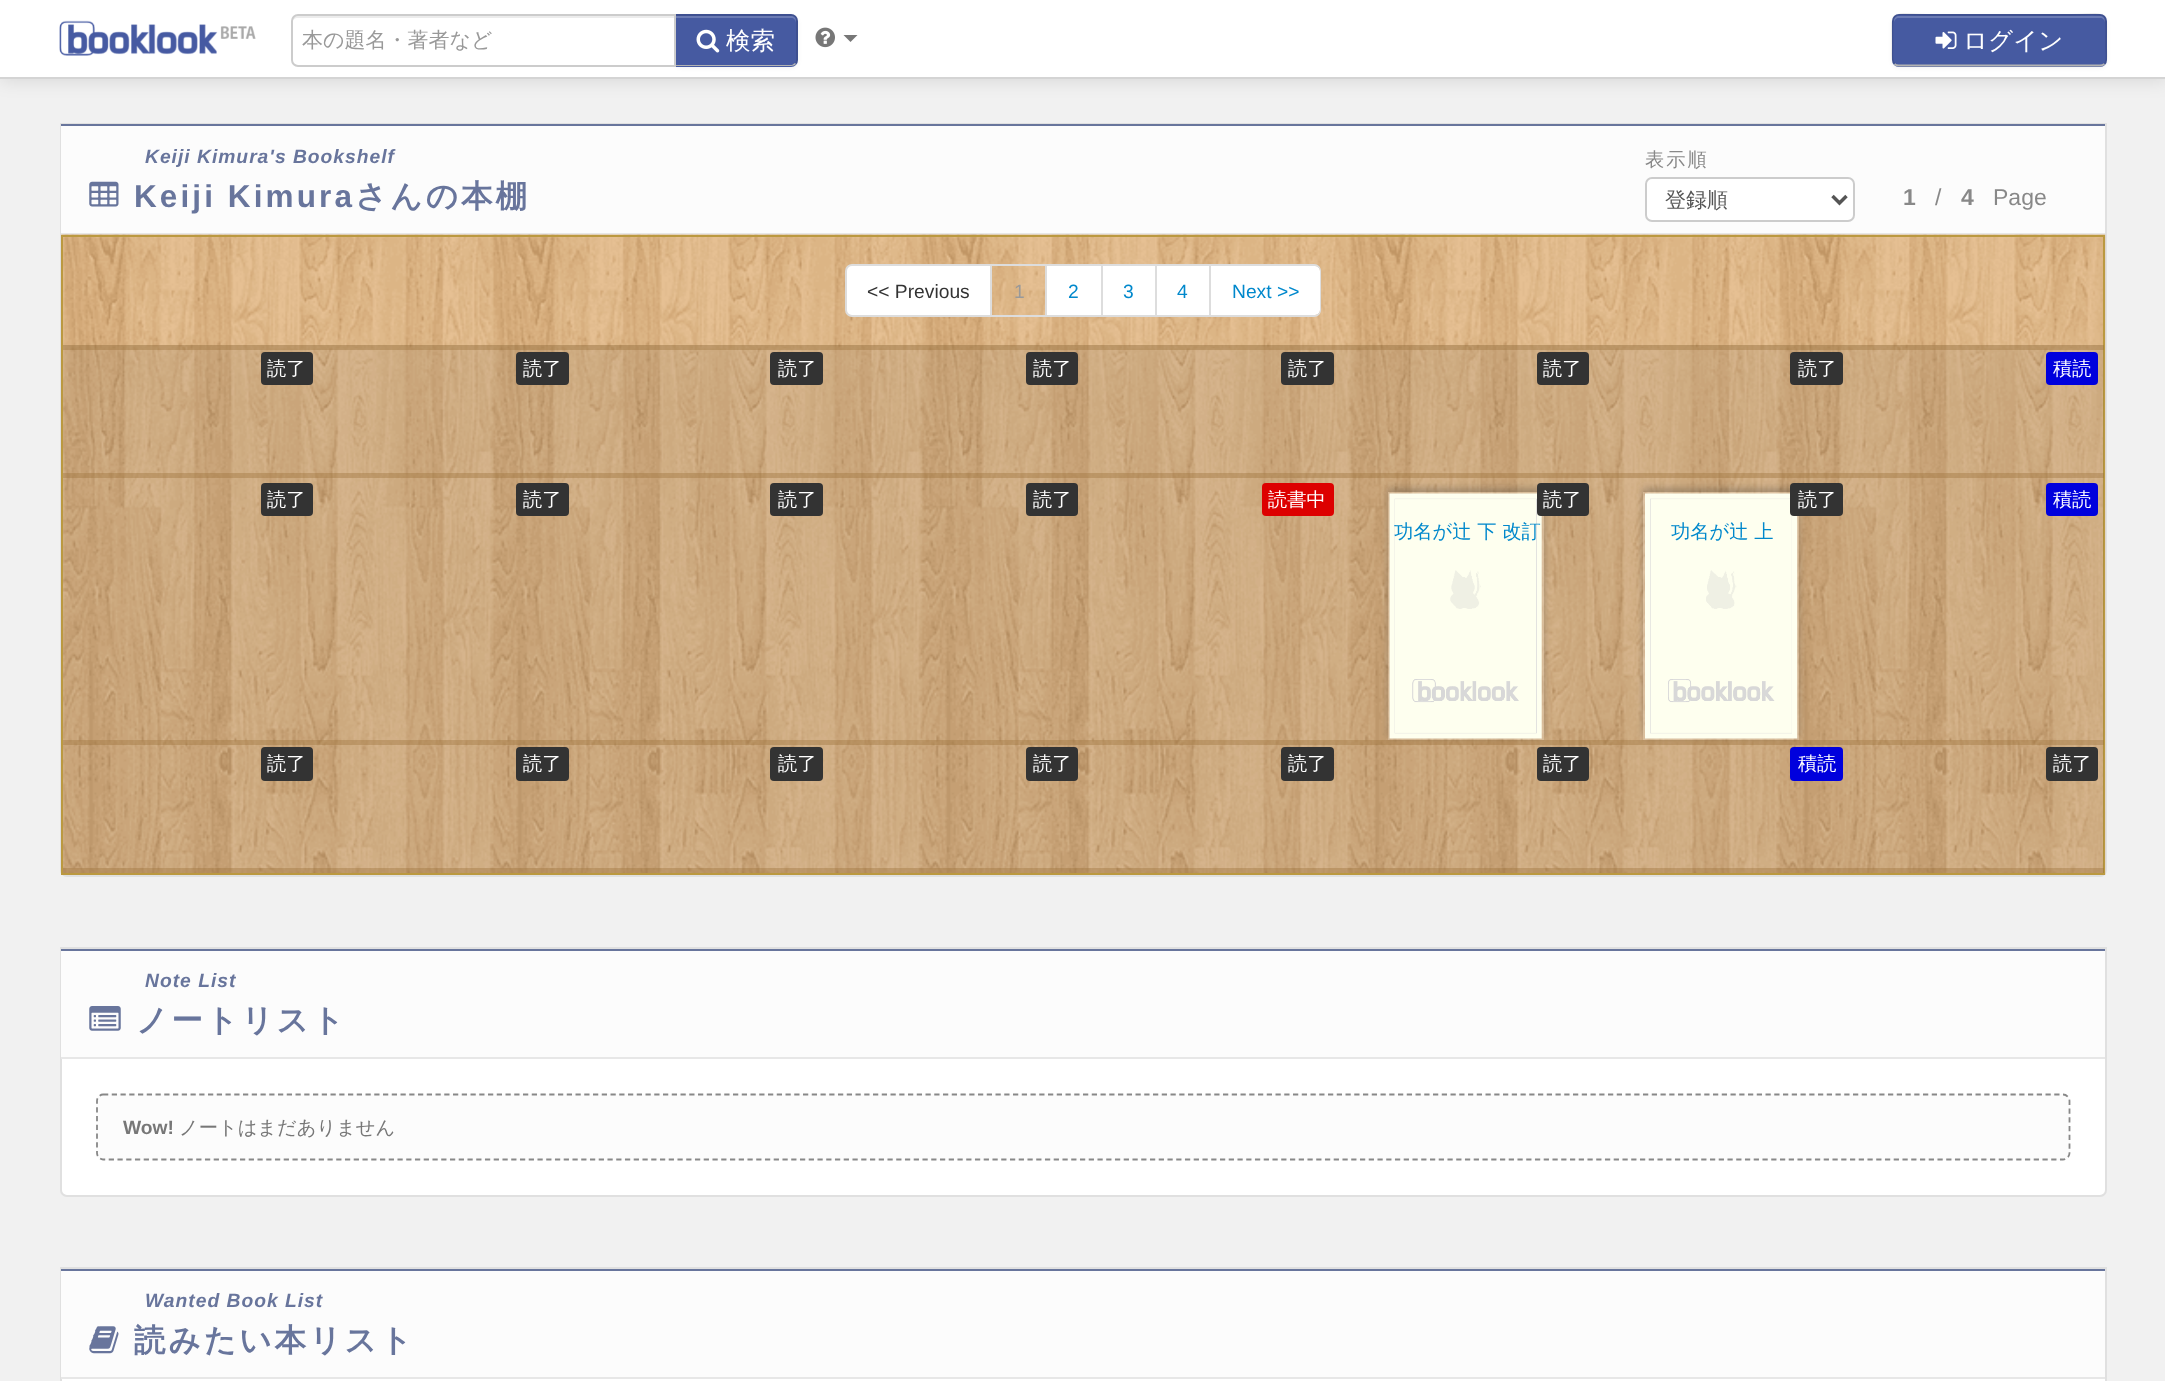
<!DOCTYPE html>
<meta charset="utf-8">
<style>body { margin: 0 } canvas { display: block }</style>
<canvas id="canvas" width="2165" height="1381"></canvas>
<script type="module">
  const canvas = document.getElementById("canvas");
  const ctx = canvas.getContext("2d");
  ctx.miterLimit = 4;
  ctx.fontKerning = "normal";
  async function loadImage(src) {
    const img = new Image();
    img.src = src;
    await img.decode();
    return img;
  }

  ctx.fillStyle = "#f1f1f1";
  ctx.fillRect(0, 0, 2165, 1381);
  ctx.fillStyle = "rgba(0, 0, 0, 0.1)";
  ctx.filter = "blur(9px)";
  ctx.beginPath();
  ctx.rect(0, 2, 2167, 79);
  ctx.fill();
  ctx.filter = "none";
  ctx.fillStyle = "#ffffff";
  ctx.fillRect(0, 0, 2165, 77);
  ctx.fillStyle = "#d4d4d4";
  ctx.fillRect(0, 77, 2165, 2);
  ctx.drawImage(await loadImage("img1.png"), 59, 20, 197, 36);
  ctx.fillStyle = "rgba(0, 0, 0, 0.05)";
  ctx.filter = "blur(2px)";
  ctx.beginPath();
  ctx.roundRect(674, 16, 124, 52, 7);
  ctx.fill();
  ctx.filter = "none";
  ctx.fillStyle = "#465aa1";
  ctx.beginPath();
  ctx.roundRect(674, 14, 124, 53, [0, 7, 7, 0]);
  ctx.fill();
  ctx.fillStyle = "#6b7bb4";
  ctx.beginPath();
  ctx.moveTo(676, 18);
  ctx.lineTo(791, 18);
  ctx.bezierCurveTo(794, 18, 796, 20, 796, 23);
  ctx.lineTo(796, 21);
  ctx.bezierCurveTo(796, 18, 794, 16, 791, 16);
  ctx.lineTo(676, 16);
  ctx.closePath();
  ctx.fill();
  ctx.fillStyle = "rgba(0, 0, 0, 0.1)";
  ctx.beginPath();
  ctx.moveTo(674, 14);
  ctx.lineTo(676, 16);
  ctx.lineTo(792, 16);
  ctx.lineTo(795, 17);
  ctx.lineTo(796, 16);
  ctx.bezierCurveTo(795, 15, 793, 14, 791, 14);
  ctx.closePath();
  ctx.fill();
  ctx.beginPath();
  ctx.moveTo(798, 60);
  ctx.lineTo(798, 21);
  ctx.bezierCurveTo(798, 19, 797, 17, 796, 16);
  ctx.lineTo(795, 17);
  ctx.bezierCurveTo(796, 18, 796, 20, 796, 21);
  ctx.lineTo(796, 60);
  ctx.bezierCurveTo(796, 61, 796, 62, 795, 63);
  ctx.lineTo(796, 64);
  ctx.bezierCurveTo(797, 63, 798, 62, 798, 60);
  ctx.closePath();
  ctx.fill();
  ctx.fillStyle = "#b3b3b3";
  ctx.beginPath();
  ctx.moveTo(796, 64);
  ctx.bezierCurveTo(795, 65, 793, 66, 791, 66);
  ctx.lineTo(674, 66);
  ctx.lineTo(676, 64);
  ctx.lineTo(676, 65);
  ctx.lineTo(792, 65);
  ctx.lineTo(795, 63);
  ctx.closePath();
  ctx.fill();
  ctx.fillStyle = "#ffffff";
  ctx.beginPath();
  ctx.roundRect(291, 14, 385, 53, [7, 0, 0, 7]);
  ctx.fill();
  ctx.fillStyle = "#ececec";
  ctx.beginPath();
  ctx.moveTo(298, 18);
  ctx.lineTo(674, 18);
  ctx.lineTo(674, 16);
  ctx.lineTo(297, 16);
  ctx.bezierCurveTo(294, 16, 292, 18, 292, 21);
  ctx.lineTo(292, 23);
  ctx.bezierCurveTo(292, 20, 295, 18, 298, 18);
  ctx.closePath();
  ctx.fill();
  ctx.beginPath();
  ctx.roundRect(292, 15, 383, 51, [6, 0, 0, 6]);
  ctx.strokeStyle = "#cccccc";
  ctx.lineWidth = 2;
  ctx.stroke();
  ctx.font = "500 21px WenQuanYi Zen Hei";
  ctx.fillStyle = "#999999";
  ctx.fillText("本の題名・著者など", 302, 47);
  ctx.drawImage(await loadImage("img2.png"), 696, 29, 24, 24);
  ctx.font = "500 24.5px WenQuanYi Zen Hei";
  ctx.fillStyle = "#ffffff";
  ctx.fillText("検索", 726, 49);
  ctx.drawImage(await loadImage("img3.png"), 815, 27, 20, 21);
  ctx.fillStyle = "#777777";
  ctx.beginPath();
  ctx.moveTo(843.5, 35);
  ctx.lineTo(857.5, 35);
  ctx.lineTo(850.5, 42);
  ctx.closePath();
  ctx.fill();
  ctx.fillStyle = "rgba(0, 0, 0, 0.05)";
  ctx.filter = "blur(2px)";
  ctx.beginPath();
  ctx.roundRect(1892, 16, 215, 52, 7);
  ctx.fill();
  ctx.filter = "none";
  ctx.fillStyle = "#465aa1";
  ctx.beginPath();
  ctx.roundRect(1892, 14, 215, 53, 7);
  ctx.fill();
  ctx.fillStyle = "#6b7bb4";
  ctx.beginPath();
  ctx.moveTo(1899, 18);
  ctx.lineTo(2100, 18);
  ctx.bezierCurveTo(2103, 18, 2105, 20, 2105, 23);
  ctx.lineTo(2105, 21);
  ctx.bezierCurveTo(2105, 18, 2103, 16, 2100, 16);
  ctx.lineTo(1899, 16);
  ctx.bezierCurveTo(1896, 16, 1894, 18, 1894, 21);
  ctx.lineTo(1894, 23);
  ctx.bezierCurveTo(1894, 20, 1896, 18, 1899, 18);
  ctx.closePath();
  ctx.fill();
  ctx.beginPath();
  ctx.moveTo(2104.5, 64);
  ctx.bezierCurveTo(2103, 65, 2101.5, 65.5, 2100, 65.5);
  ctx.lineTo(1899, 65.5);
  ctx.bezierCurveTo(1897, 65.5, 1895.5, 65, 1894.5, 64);
  ctx.strokeStyle = "#b3b3b3";
  ctx.lineWidth = 1.8;
  ctx.stroke();
  ctx.beginPath();
  ctx.moveTo(1894.5, 64);
  ctx.bezierCurveTo(1891, 60.5, 1892.5, 50.5, 1892.5, 46.5);
  ctx.bezierCurveTo(1892.5, 6.5, 1887, 15, 1932.5, 15);
  ctx.lineTo(2066.5, 15);
  ctx.bezierCurveTo(2112, 15, 2106, 6.5, 2106, 46.5);
  ctx.bezierCurveTo(2106, 50.5, 2108, 60.5, 2104.5, 64);
  ctx.strokeStyle = "rgba(0, 0, 0, 0.1)";
  ctx.stroke();
  ctx.drawImage(await loadImage("img4.png"), 1935, 31, 22, 18);
  ctx.fillStyle = "#ffffff";
  ctx.fillText("ログイン", 1963, 49);
  ctx.beginPath();
  ctx.roundRect(61, 124, 2045, 752, [0, 0, 6, 6]);
  ctx.strokeStyle = "#e0e0e0";
  ctx.lineWidth = 2;
  ctx.stroke();
  ctx.fillStyle = "#fcfcfc";
  ctx.fillRect(61, 126, 2044, 107);
  ctx.fillStyle = "#68759c";
  ctx.fillRect(61, 124, 2044, 2);
  ctx.fillStyle = "#e7e7e7";
  ctx.fillRect(61, 233, 2044, 2);
  ctx.letterSpacing = "1px";
  ctx.font = "italic bold 19.25px Liberation Sans";
  ctx.fillStyle = "#68759c";
  ctx.fillText("Keiji Kimura's Bookshelf", 145, 163);
  ctx.drawImage(await loadImage("img5.png"), 89, 181, 30, 26);
  ctx.letterSpacing = "3.1px";
  ctx.font = "bold 31.5px Liberation Sans";
  ctx.fillText("Keiji Kimura", 134, 207);
  ctx.font = "bold 31.5px WenQuanYi Zen Hei";
  ctx.fillText("さんの本棚", 355, 207);
  ctx.letterSpacing = "2px";
  ctx.font = "500 19.25px WenQuanYi Zen Hei";
  ctx.fillStyle = "#888888";
  ctx.fillText("表示順", 1645, 166);
  ctx.fillStyle = "#ffffff";
  ctx.beginPath();
  ctx.roundRect(1646, 178, 208, 43, 6);
  ctx.fill();
  ctx.strokeStyle = "#cccccc";
  ctx.stroke();
  ctx.beginPath();
  ctx.moveTo(1832.5, 196);
  ctx.lineTo(1839.5, 203);
  ctx.lineTo(1846.5, 196);
  ctx.strokeStyle = "#555555";
  ctx.lineWidth = 3.5;
  ctx.stroke();
  ctx.letterSpacing = "0px";
  ctx.font = "500 21px WenQuanYi Zen Hei";
  ctx.fillStyle = "#555555";
  ctx.fillText("登録順", 1665, 207);
  ctx.font = "bold 23px Liberation Sans";
  ctx.fillStyle = "#888888";
  ctx.fillText("1", 1903, 205);
  ctx.font = "23px Liberation Sans";
  ctx.fillText("/", 1935, 205);
  ctx.font = "bold 23px Liberation Sans";
  ctx.fillText("4", 1961, 205);
  ctx.font = "23px Liberation Sans";
  ctx.fillText("Page", 1993, 205);
  ctx.drawImage(await loadImage("img6.png"), 61, 234, 2045, 641);
  ctx.strokeStyle = "#bb9940";
  ctx.lineWidth = 2;
  ctx.strokeRect(62, 236, 2042, 638);
  ctx.fillStyle = "#ffffff";
  ctx.beginPath();
  ctx.roundRect(846, 265, 145, 51, [6, 0, 0, 6]);
  ctx.fill();
  ctx.strokeStyle = "#dddddd";
  ctx.stroke();
  ctx.font = "19.25px Liberation Sans";
  ctx.fillStyle = "#333333";
  ctx.fillText("<< Previous", 867, 298);
  ctx.fillStyle = "#dddddd";
  ctx.fillRect(992, 264, 219, 2);
  ctx.fillRect(1045, 264, 2, 53);
  ctx.fillRect(992, 315, 55, 2);
  ctx.fillStyle = "#999999";
  ctx.fillText("1", 1014, 298);
  ctx.fillStyle = "#ffffff";
  ctx.fillRect(1047, 266, 54, 49);
  ctx.fillStyle = "#dddddd";
  ctx.fillRect(1101, 264, 2, 53);
  ctx.fillRect(1047, 315, 56, 2);
  ctx.fillStyle = "#0088cc";
  ctx.fillText("2", 1068, 298);
  ctx.fillStyle = "#ffffff";
  ctx.fillRect(1103, 266, 52, 49);
  ctx.fillStyle = "#dddddd";
  ctx.fillRect(1155, 264, 2, 53);
  ctx.fillRect(1103, 315, 54, 2);
  ctx.fillStyle = "#0088cc";
  ctx.fillText("3", 1123, 298);
  ctx.fillStyle = "#ffffff";
  ctx.fillRect(1157, 266, 52, 49);
  ctx.fillStyle = "#dddddd";
  ctx.fillRect(1209, 264, 2, 53);
  ctx.fillRect(1157, 315, 54, 2);
  ctx.fillStyle = "#0088cc";
  ctx.fillText("4", 1177, 298);
  ctx.fillStyle = "#ffffff";
  ctx.beginPath();
  ctx.roundRect(1211, 266, 109, 49, [0, 5, 5, 0]);
  ctx.fill();
  ctx.fillStyle = "#dddddd";
  ctx.beginPath();
  ctx.moveTo(1211, 264);
  ctx.lineTo(1314, 264);
  ctx.bezierCurveTo(1318, 264, 1321, 267, 1321, 271);
  ctx.lineTo(1321, 310);
  ctx.bezierCurveTo(1321, 314, 1318, 317, 1314, 317);
  ctx.lineTo(1211, 317);
  ctx.closePath();
  ctx.moveTo(1211, 266);
  ctx.lineTo(1314, 266);
  ctx.bezierCurveTo(1317, 266, 1320, 268, 1320, 271);
  ctx.lineTo(1320, 310);
  ctx.bezierCurveTo(1320, 313, 1317, 315, 1314, 315);
  ctx.lineTo(1211, 315);
  ctx.closePath();
  ctx.fill("evenodd");
  ctx.fillStyle = "#0088cc";
  ctx.fillText("Next >>", 1232, 298);
  ctx.fillStyle = "rgba(76, 76, 76, 0.1)";
  ctx.fillRect(63, 345, 2041, 528);
  ctx.fillStyle = "rgba(158, 114, 59, 0.4)";
  ctx.fillRect(63, 345, 2041, 5);
  ctx.fillRect(63, 473, 256, 5);
  ctx.fillStyle = "#333333";
  ctx.beginPath();
  ctx.roundRect(261, 352, 52, 33, 4);
  ctx.fill();
  ctx.font = "500 19.25px WenQuanYi Zen Hei";
  ctx.fillStyle = "#ffffff";
  ctx.fillText("読了", 267, 375);
  ctx.fillStyle = "rgba(158, 114, 59, 0.4)";
  ctx.fillRect(319, 473, 255, 5);
  ctx.fillStyle = "#333333";
  ctx.beginPath();
  ctx.roundRect(516, 352, 53, 33, 4);
  ctx.fill();
  ctx.fillStyle = "#ffffff";
  ctx.fillText("読了", 523, 375);
  ctx.fillStyle = "rgba(158, 114, 59, 0.4)";
  ctx.fillRect(574, 473, 254, 5);
  ctx.fillStyle = "#333333";
  ctx.beginPath();
  ctx.roundRect(770, 352, 53, 33, 4);
  ctx.fill();
  ctx.fillStyle = "#ffffff";
  ctx.fillText("読了", 778, 375);
  ctx.fillStyle = "rgba(158, 114, 59, 0.4)";
  ctx.fillRect(828, 473, 255, 5);
  ctx.fillStyle = "#333333";
  ctx.beginPath();
  ctx.roundRect(1026, 352, 52, 33, 4);
  ctx.fill();
  ctx.fillStyle = "#ffffff";
  ctx.fillText("読了", 1033, 375);
  ctx.fillStyle = "rgba(158, 114, 59, 0.4)";
  ctx.fillRect(1083, 473, 256, 5);
  ctx.fillStyle = "#333333";
  ctx.beginPath();
  ctx.roundRect(1281, 352, 53, 33, 4);
  ctx.fill();
  ctx.fillStyle = "#ffffff";
  ctx.fillText("読了", 1288, 375);
  ctx.fillStyle = "rgba(158, 114, 59, 0.4)";
  ctx.fillRect(1339, 473, 255, 5);
  ctx.fillStyle = "#333333";
  ctx.beginPath();
  ctx.roundRect(1537, 352, 52, 33, 4);
  ctx.fill();
  ctx.fillStyle = "#ffffff";
  ctx.fillText("読了", 1543, 375);
  ctx.fillStyle = "rgba(158, 114, 59, 0.4)";
  ctx.fillRect(1594, 473, 254, 5);
  ctx.fillStyle = "#333333";
  ctx.beginPath();
  ctx.roundRect(1790, 352, 53, 33, 4);
  ctx.fill();
  ctx.fillStyle = "#ffffff";
  ctx.fillText("読了", 1798, 375);
  ctx.fillStyle = "rgba(158, 114, 59, 0.4)";
  ctx.fillRect(1848, 473, 256, 5);
  ctx.fillStyle = "#0000dd";
  ctx.beginPath();
  ctx.roundRect(2046, 352, 52, 33, 4);
  ctx.fill();
  ctx.fillStyle = "#ffffff";
  ctx.fillText("積読", 2053, 375);
  ctx.fillStyle = "rgba(158, 114, 59, 0.4)";
  ctx.fillRect(63, 740, 256, 5);
  ctx.fillStyle = "#333333";
  ctx.beginPath();
  ctx.roundRect(261, 483, 52, 33, 4);
  ctx.fill();
  ctx.fillStyle = "#ffffff";
  ctx.fillText("読了", 267, 506);
  ctx.fillStyle = "rgba(158, 114, 59, 0.4)";
  ctx.fillRect(319, 740, 255, 5);
  ctx.fillStyle = "#333333";
  ctx.beginPath();
  ctx.roundRect(516, 483, 53, 33, 4);
  ctx.fill();
  ctx.fillStyle = "#ffffff";
  ctx.fillText("読了", 523, 506);
  ctx.fillStyle = "rgba(158, 114, 59, 0.4)";
  ctx.fillRect(574, 740, 254, 5);
  ctx.fillStyle = "#333333";
  ctx.beginPath();
  ctx.roundRect(770, 483, 53, 33, 4);
  ctx.fill();
  ctx.fillStyle = "#ffffff";
  ctx.fillText("読了", 778, 506);
  ctx.fillStyle = "rgba(158, 114, 59, 0.4)";
  ctx.fillRect(828, 740, 255, 5);
  ctx.fillStyle = "#333333";
  ctx.beginPath();
  ctx.roundRect(1026, 483, 52, 33, 4);
  ctx.fill();
  ctx.fillStyle = "#ffffff";
  ctx.fillText("読了", 1033, 506);
  ctx.fillStyle = "rgba(158, 114, 59, 0.4)";
  ctx.fillRect(1083, 740, 256, 5);
  ctx.fillStyle = "#dd0000";
  ctx.beginPath();
  ctx.roundRect(1262, 483, 72, 33, 4);
  ctx.fill();
  ctx.fillStyle = "#ffffff";
  ctx.fillText("読書中", 1268, 506);
  ctx.fillStyle = "rgba(158, 114, 59, 0.4)";
  ctx.fillRect(1339, 740, 255, 5);
  ctx.save();
  ctx.beginPath();
  ctx.moveTo(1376, 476);
  ctx.lineTo(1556, 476);
  ctx.lineTo(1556, 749);
  ctx.lineTo(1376, 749);
  ctx.closePath();
  ctx.moveTo(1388, 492);
  ctx.lineTo(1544, 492);
  ctx.lineTo(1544, 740);
  ctx.lineTo(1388, 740);
  ctx.closePath();
  ctx.clip("evenodd");
  ctx.fillStyle = "rgba(51, 51, 51, 0.3)";
  ctx.filter = "blur(3.5px)";
  ctx.beginPath();
  ctx.rect(1388, 488, 156, 249);
  ctx.fill();
  ctx.filter = "none";
  ctx.restore();
  ctx.strokeStyle = "rgba(255, 255, 255, 0.2)";
  ctx.strokeRect(1389, 493, 154, 246);
  ctx.drawImage(await loadImage("img7.png"), 1389, 493, 153, 246);
  ctx.fillStyle = "#333333";
  ctx.beginPath();
  ctx.roundRect(1537, 483, 52, 33, 4);
  ctx.fill();
  ctx.fillStyle = "#ffffff";
  ctx.fillText("読了", 1543, 506);
  ctx.fillStyle = "#0088cc";
  ctx.fillText("功名が辻 下 改訂", 1394, 538);
  ctx.fillStyle = "rgba(158, 114, 59, 0.4)";
  ctx.fillRect(1594, 740, 254, 5);
  ctx.save();
  ctx.beginPath();
  ctx.moveTo(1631, 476);
  ctx.lineTo(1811, 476);
  ctx.lineTo(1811, 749);
  ctx.lineTo(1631, 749);
  ctx.closePath();
  ctx.moveTo(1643, 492);
  ctx.lineTo(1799, 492);
  ctx.lineTo(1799, 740);
  ctx.lineTo(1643, 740);
  ctx.closePath();
  ctx.clip("evenodd");
  ctx.fillStyle = "rgba(51, 51, 51, 0.3)";
  ctx.filter = "blur(3.5px)";
  ctx.beginPath();
  ctx.rect(1643, 488, 156, 249);
  ctx.fill();
  ctx.filter = "none";
  ctx.restore();
  ctx.strokeRect(1644, 493, 154, 246);
  ctx.drawImage(await loadImage("img8.png"), 1645, 493, 153, 246);
  ctx.fillStyle = "#333333";
  ctx.beginPath();
  ctx.roundRect(1790, 483, 53, 33, 4);
  ctx.fill();
  ctx.fillStyle = "#ffffff";
  ctx.fillText("読了", 1798, 506);
  ctx.fillStyle = "#0088cc";
  ctx.fillText("功名が辻 上", 1671, 538);
  ctx.fillStyle = "rgba(158, 114, 59, 0.4)";
  ctx.fillRect(1848, 740, 256, 5);
  ctx.fillStyle = "#0000dd";
  ctx.beginPath();
  ctx.roundRect(2046, 483, 52, 33, 4);
  ctx.fill();
  ctx.fillStyle = "#ffffff";
  ctx.fillText("積読", 2053, 506);
  ctx.fillStyle = "rgba(158, 114, 59, 0.4)";
  ctx.fillRect(63, 868, 256, 5);
  ctx.fillStyle = "#333333";
  ctx.beginPath();
  ctx.roundRect(261, 747, 52, 34, 4);
  ctx.fill();
  ctx.fillStyle = "#ffffff";
  ctx.fillText("読了", 267, 770);
  ctx.fillStyle = "rgba(158, 114, 59, 0.4)";
  ctx.fillRect(319, 868, 255, 5);
  ctx.fillStyle = "#333333";
  ctx.beginPath();
  ctx.roundRect(516, 747, 53, 34, 4);
  ctx.fill();
  ctx.fillStyle = "#ffffff";
  ctx.fillText("読了", 523, 770);
  ctx.fillStyle = "rgba(158, 114, 59, 0.4)";
  ctx.fillRect(574, 868, 254, 5);
  ctx.fillStyle = "#333333";
  ctx.beginPath();
  ctx.roundRect(770, 747, 53, 34, 4);
  ctx.fill();
  ctx.fillStyle = "#ffffff";
  ctx.fillText("読了", 778, 770);
  ctx.fillStyle = "rgba(158, 114, 59, 0.4)";
  ctx.fillRect(828, 868, 255, 5);
  ctx.fillStyle = "#333333";
  ctx.beginPath();
  ctx.roundRect(1026, 747, 52, 34, 4);
  ctx.fill();
  ctx.fillStyle = "#ffffff";
  ctx.fillText("読了", 1033, 770);
  ctx.fillStyle = "rgba(158, 114, 59, 0.4)";
  ctx.fillRect(1083, 868, 256, 5);
  ctx.fillStyle = "#333333";
  ctx.beginPath();
  ctx.roundRect(1281, 747, 53, 34, 4);
  ctx.fill();
  ctx.fillStyle = "#ffffff";
  ctx.fillText("読了", 1288, 770);
  ctx.fillStyle = "rgba(158, 114, 59, 0.4)";
  ctx.fillRect(1339, 868, 255, 5);
  ctx.fillStyle = "#333333";
  ctx.beginPath();
  ctx.roundRect(1537, 747, 52, 34, 4);
  ctx.fill();
  ctx.fillStyle = "#ffffff";
  ctx.fillText("読了", 1543, 770);
  ctx.fillStyle = "rgba(158, 114, 59, 0.4)";
  ctx.fillRect(1594, 868, 254, 5);
  ctx.fillStyle = "#0000dd";
  ctx.beginPath();
  ctx.roundRect(1790, 747, 53, 34, 4);
  ctx.fill();
  ctx.fillStyle = "#ffffff";
  ctx.fillText("積読", 1798, 770);
  ctx.fillStyle = "rgba(158, 114, 59, 0.4)";
  ctx.fillRect(1848, 868, 256, 5);
  ctx.fillStyle = "#333333";
  ctx.beginPath();
  ctx.roundRect(2046, 747, 52, 34, 4);
  ctx.fill();
  ctx.fillStyle = "#ffffff";
  ctx.fillText("読了", 2053, 770);
  ctx.beginPath();
  ctx.roundRect(61, 948, 2045, 248, [0, 0, 6, 6]);
  ctx.fill();
  ctx.strokeStyle = "#e0e0e0";
  ctx.stroke();
  ctx.fillStyle = "#fcfcfc";
  ctx.fillRect(61, 951, 2044, 106);
  ctx.fillStyle = "#68759c";
  ctx.fillRect(61, 949, 2044, 2);
  ctx.fillStyle = "#e7e7e7";
  ctx.fillRect(61, 1057, 2044, 2);
  ctx.letterSpacing = "1px";
  ctx.font = "italic bold 19.25px Liberation Sans";
  ctx.fillStyle = "#68759c";
  ctx.fillText("Note List", 145, 987);
  ctx.drawImage(await loadImage("img9.png"), 89, 1006, 32, 25);
  ctx.letterSpacing = "3.1px";
  ctx.font = "bold 31.5px WenQuanYi Zen Hei";
  ctx.fillText("ノートリスト", 136, 1031);
  ctx.fillStyle = "#fcfcfc";
  ctx.beginPath();
  ctx.roundRect(96, 1094, 1974, 66, 7);
  ctx.fill();
  ctx.beginPath();
  ctx.moveTo(103, 1094.5);
  ctx.lineTo(2063, 1094.5);
  ctx.bezierCurveTo(2066.5, 1094.5, 2069.5, 1097.5, 2069.5, 1101);
  ctx.lineTo(2069.5, 1153);
  ctx.bezierCurveTo(2069.5, 1156.5, 2066.5, 1159.5, 2063, 1159.5);
  ctx.lineTo(103, 1159.5);
  ctx.bezierCurveTo(100, 1159.5, 97, 1156.5, 97, 1153);
  ctx.lineTo(97, 1101);
  ctx.bezierCurveTo(97, 1097.5, 100, 1094.5, 103, 1094.5);
  ctx.closePath();
  ctx.strokeStyle = "#888888";
  ctx.lineWidth = 1.8;
  ctx.setLineDash([5.25, 3.5]);
  ctx.stroke();
  ctx.letterSpacing = "0px";
  ctx.font = "bold 19.25px Liberation Sans";
  ctx.fillStyle = "#777777";
  ctx.fillText("Wow!", 123, 1134);
  ctx.font = "500 19.25px WenQuanYi Zen Hei";
  ctx.fillText("ノートはまだありません", 179, 1134);
  ctx.fillStyle = "#ffffff";
  ctx.fillRect(62, 1379, 2043, 2);
  ctx.strokeStyle = "#e0e0e0";
  ctx.lineWidth = 2;
  ctx.setLineDash([]);
  ctx.strokeRect(61, 1268, 2045, 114);
  ctx.fillStyle = "#fcfcfc";
  ctx.fillRect(61, 1271, 2044, 106);
  ctx.fillStyle = "#68759c";
  ctx.fillRect(61, 1269, 2044, 2);
  ctx.fillStyle = "#e7e7e7";
  ctx.fillRect(61, 1377, 2044, 2);
  ctx.letterSpacing = "1px";
  ctx.font = "italic bold 19.25px Liberation Sans";
  ctx.fillStyle = "#68759c";
  ctx.fillText("Wanted Book List", 145, 1307);
  ctx.drawImage(await loadImage("img10.png"), 89, 1326, 30, 28);
  ctx.letterSpacing = "3.1px";
  ctx.font = "bold 31.5px WenQuanYi Zen Hei";
  ctx.fillText("読みたい本リスト", 134, 1351);
</script>
